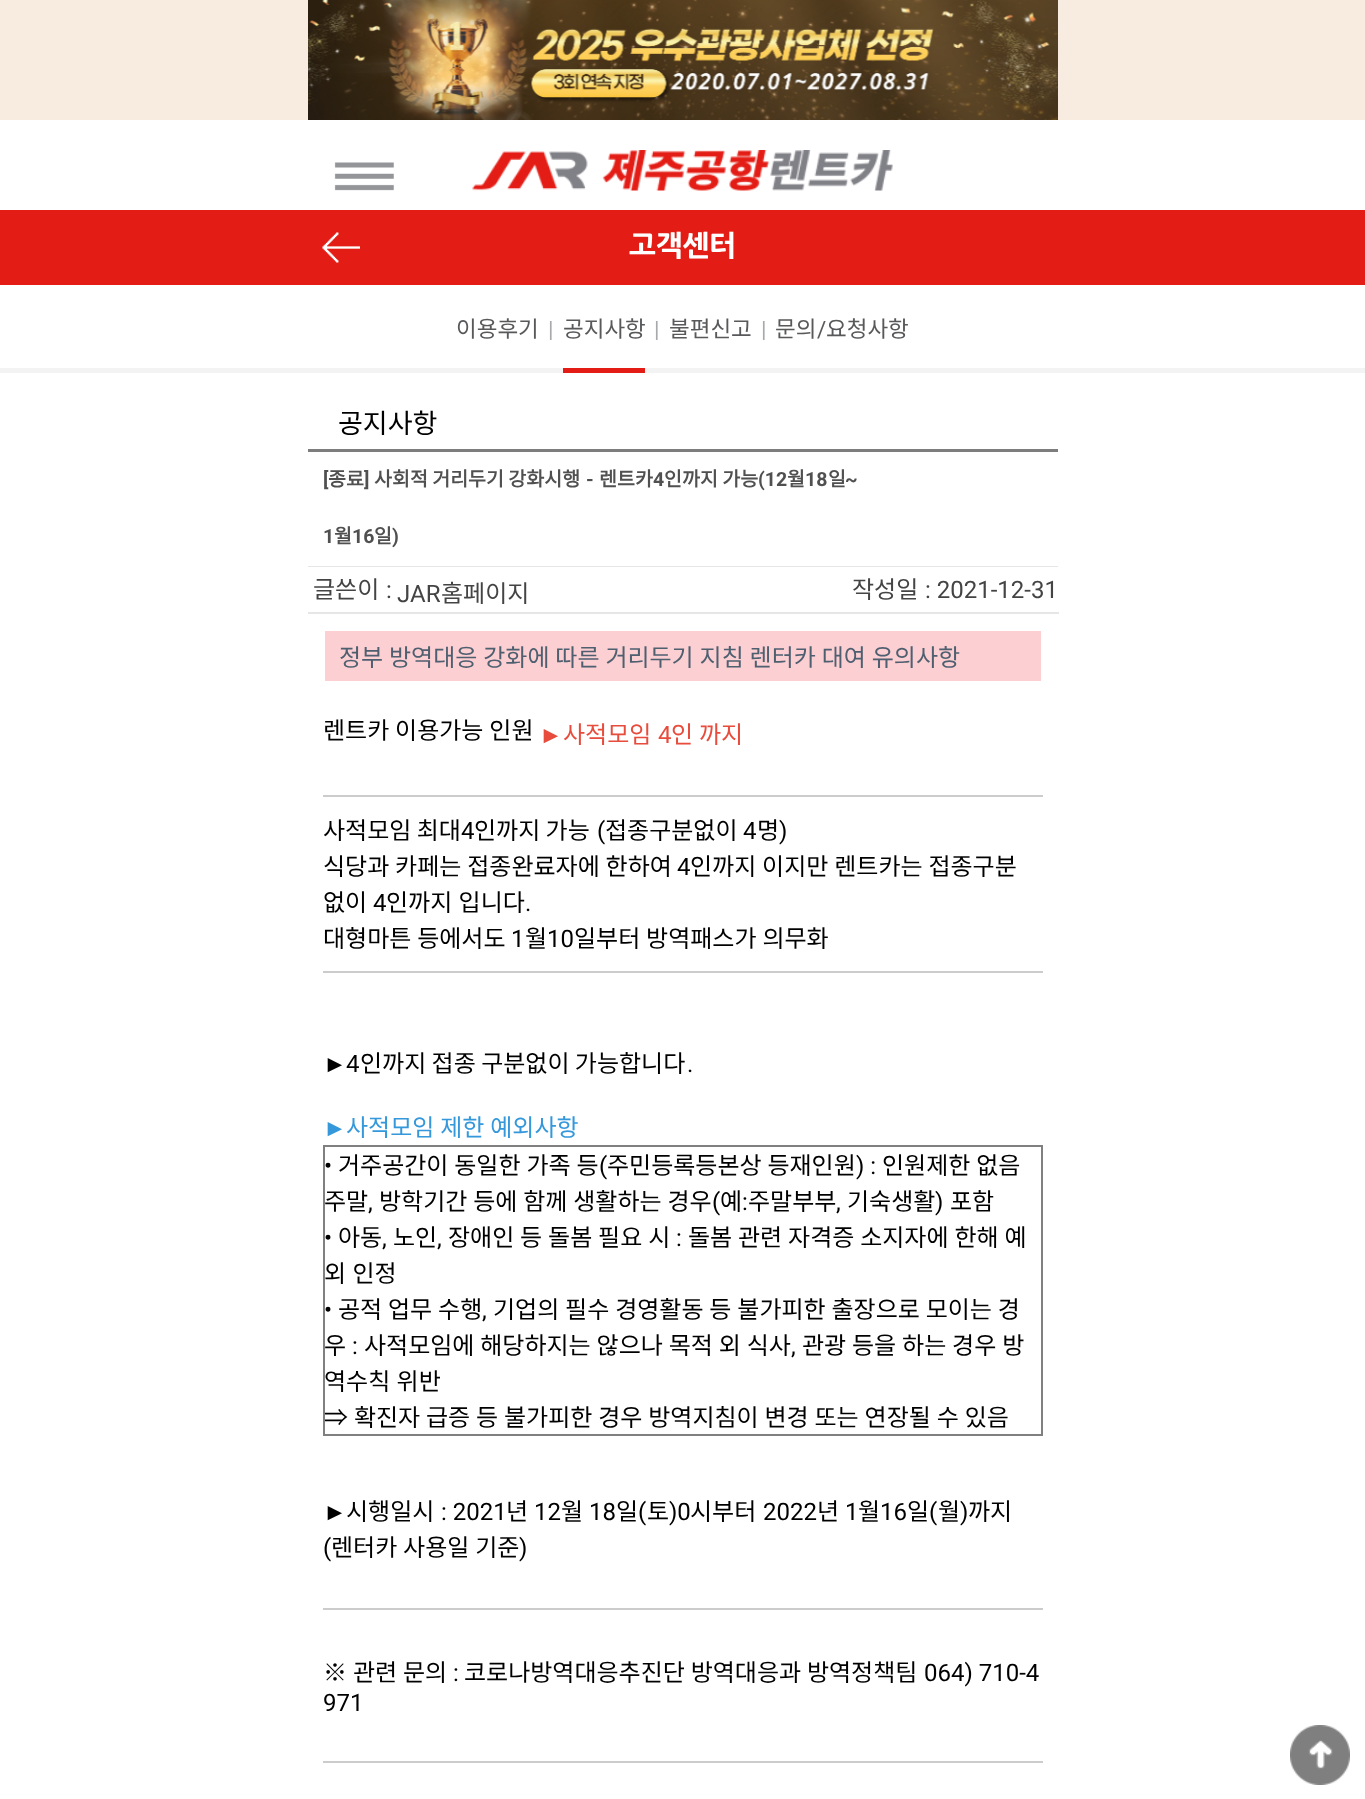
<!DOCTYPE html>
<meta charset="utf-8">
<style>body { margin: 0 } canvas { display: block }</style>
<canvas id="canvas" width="1365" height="1799"></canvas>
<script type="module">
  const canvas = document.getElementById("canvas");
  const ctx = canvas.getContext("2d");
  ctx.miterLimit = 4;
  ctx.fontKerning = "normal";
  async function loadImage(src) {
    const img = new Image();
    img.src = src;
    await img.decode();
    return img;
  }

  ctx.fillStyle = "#ffffff";
  ctx.fillRect(0, 0, 1365, 1799);
  ctx.fillStyle = "#f8ece0";
  ctx.fillRect(0, 0, 1365, 120);
  ctx.drawImage(await loadImage("img1.png"), 308, 0, 750, 120);
  ctx.drawImage(await loadImage("img2.png"), 334, 162, 60, 29);
  ctx.drawImage(await loadImage("img3.png"), 472, 150, 421, 41);
  ctx.fillStyle = "#e31d16";
  ctx.fillRect(0, 210, 1365, 75);
  ctx.drawImage(await loadImage("img4.png"), 322, 232, 38, 31);
  ctx.font = "800 28.5px NanumGothic";
  ctx.fillStyle = "#ffffff";
  ctx.fillText("고객센터", 629, 256);
  ctx.fillStyle = "#f3f3f3";
  ctx.fillRect(0, 368, 1365, 5);
  ctx.font = "100 22.5px Noto Sans KR";
  ctx.fillStyle = "#58595b";
  ctx.fillText("이용후기", 456, 337);
  ctx.fillStyle = "#ffffff";
  ctx.fillRect(548, 368, 6, 4);
  ctx.fillStyle = "#f3f3f3";
  ctx.fillRect(548, 368, 6, 4);
  ctx.font = "22.5px Roboto";
  ctx.fillStyle = "#a7a9ac";
  ctx.fillText("|", 548, 337);
  ctx.fillStyle = "#e31d16";
  ctx.fillRect(563, 368, 82, 5);
  ctx.font = "100 22.5px Noto Sans KR";
  ctx.fillStyle = "#58595b";
  ctx.fillText("공지사항", 563, 337);
  ctx.fillStyle = "#ffffff";
  ctx.fillRect(654, 368, 6, 4);
  ctx.fillStyle = "#f3f3f3";
  ctx.fillRect(654, 368, 6, 4);
  ctx.font = "22.5px Roboto";
  ctx.fillStyle = "#a7a9ac";
  ctx.fillText("|", 654, 337);
  ctx.font = "100 22.5px Noto Sans KR";
  ctx.fillStyle = "#58595b";
  ctx.fillText("불편신고", 669, 337);
  ctx.fillStyle = "#ffffff";
  ctx.fillRect(761, 368, 6, 4);
  ctx.fillStyle = "#f3f3f3";
  ctx.fillRect(761, 368, 6, 4);
  ctx.font = "22.5px Roboto";
  ctx.fillStyle = "#a7a9ac";
  ctx.fillText("|", 761, 337);
  ctx.font = "100 22.5px Noto Sans KR";
  ctx.fillStyle = "#58595b";
  ctx.fillText("문의", 775, 337);
  ctx.font = "22.5px Roboto";
  ctx.fillText("/", 817, 337);
  ctx.font = "100 22.5px Noto Sans KR";
  ctx.fillText("요청사항", 826, 337);
  ctx.font = "100 27px Noto Sans KR";
  ctx.fillStyle = "#000000";
  ctx.fillText("공지사항", 338, 433);
  ctx.fillStyle = "#7d7d7d";
  ctx.fillRect(308, 449, 750, 3);
  ctx.fillStyle = "#e6e6e6";
  ctx.fillRect(308, 566, 750, 1);
  ctx.font = "bold 19.5px Roboto";
  ctx.fillStyle = "#505050";
  ctx.fillText("[", 323, 486);
  ctx.font = "bold 19.5px Noto Sans KR";
  ctx.fillText("종료", 328, 486);
  ctx.font = "bold 19.5px Roboto";
  ctx.fillText("]", 364, 486);
  ctx.font = "bold 19.5px Noto Sans KR";
  ctx.fillText("사회적 거리두기 강화시행", 374, 486);
  ctx.font = "bold 19.5px Roboto";
  ctx.fillText("-", 586, 486);
  ctx.font = "bold 19.5px Noto Sans KR";
  ctx.fillText("렌트카", 599, 486);
  ctx.font = "bold 19.5px Roboto";
  ctx.fillText("4", 653, 486);
  ctx.font = "bold 19.5px Noto Sans KR";
  ctx.fillText("인까지 가능", 664, 486);
  ctx.font = "bold 19.5px Roboto";
  ctx.fillText("(12", 758, 486);
  ctx.font = "bold 19.5px Noto Sans KR";
  ctx.fillText("월", 787, 486);
  ctx.font = "bold 19.5px Roboto";
  ctx.fillText("18", 805, 486);
  ctx.font = "bold 19.5px Noto Sans KR";
  ctx.fillText("일", 828, 486);
  ctx.font = "bold 19.5px Roboto";
  ctx.fillText("~", 845, 486);
  ctx.fillText("1", 323, 543);
  ctx.font = "bold 19.5px Noto Sans KR";
  ctx.fillText("월", 334, 543);
  ctx.font = "bold 19.5px Roboto";
  ctx.fillText("16", 352, 543);
  ctx.font = "bold 19.5px Noto Sans KR";
  ctx.fillText("일", 374, 543);
  ctx.font = "bold 19.5px Roboto";
  ctx.fillText(")", 392, 543);
  ctx.fillStyle = "#e6e6e6";
  ctx.fillRect(308, 612, 751, 2);
  ctx.font = "100 24px Noto Sans KR";
  ctx.fillStyle = "#444444";
  ctx.fillText("글쓴이", 313, 598);
  ctx.font = "24px Roboto";
  ctx.fillText(":", 386, 598);
  ctx.fillText("JAR", 397, 602);
  ctx.font = "100 24px Noto Sans KR";
  ctx.fillText("홈페이지", 441, 602);
  ctx.fillText("작성일", 852, 598);
  ctx.font = "24px Roboto";
  ctx.fillText(": 2021-12-31", 925, 598);
  ctx.fillStyle = "#fccfd2";
  ctx.fillRect(325, 631, 716, 50);
  ctx.wordSpacing = "0.5px";
  ctx.font = "100 24px Noto Sans KR";
  ctx.fillStyle = "#4e5f70";
  ctx.fillText("정부 방역대응 강화에 따른 거리두기 지침 렌터카 대여 유의사항", 339, 666);
  ctx.fillStyle = "#000000";
  ctx.fillText("렌트카 이용가능 인원", 323, 739);
  ctx.wordSpacing = "0px";
  ctx.font = "24px Liberation Sans";
  ctx.fillStyle = "#e74c3c";
  ctx.fillText("►", 539, 743);
  ctx.font = "100 24px Noto Sans KR";
  ctx.fillText("사적모임", 563, 743);
  ctx.font = "24px Roboto";
  ctx.fillText("4", 658, 743);
  ctx.wordSpacing = "0.5px";
  ctx.font = "100 24px Noto Sans KR";
  ctx.fillText("인 까지", 671, 743);
  ctx.fillStyle = "#cccccc";
  ctx.fillRect(323, 795, 720, 2);
  ctx.wordSpacing = "0px";
  ctx.fillStyle = "#000000";
  ctx.fillText("사적모임 최대", 323, 839);
  ctx.font = "24px Roboto";
  ctx.fillText("4", 461, 839);
  ctx.font = "100 24px Noto Sans KR";
  ctx.fillText("인까지 가능", 474, 839);
  ctx.font = "24px Roboto";
  ctx.fillText("(", 597, 839);
  ctx.font = "100 24px Noto Sans KR";
  ctx.fillText("접종구분없이", 605, 839);
  ctx.font = "24px Roboto";
  ctx.fillText("4", 743, 839);
  ctx.font = "100 24px Noto Sans KR";
  ctx.fillText("명", 757, 839);
  ctx.font = "24px Roboto";
  ctx.fillText(")", 779, 839);
  ctx.wordSpacing = "0.5px";
  ctx.font = "100 24px Noto Sans KR";
  ctx.fillText("식당과 카페는 접종완료자에 한하여", 323, 875);
  ctx.wordSpacing = "0px";
  ctx.font = "24px Roboto";
  ctx.fillText("4", 677, 875);
  ctx.wordSpacing = "0.5px";
  ctx.font = "100 24px Noto Sans KR";
  ctx.fillText("인까지 이지만 렌트카는 접종구분", 690, 875);
  ctx.wordSpacing = "0px";
  ctx.fillText("없이", 323, 911);
  ctx.font = "24px Roboto";
  ctx.fillText("4", 373, 911);
  ctx.wordSpacing = "1px";
  ctx.font = "100 24px Noto Sans KR";
  ctx.fillText("인까지 입니다", 386, 911);
  ctx.wordSpacing = "0px";
  ctx.font = "24px Roboto";
  ctx.fillText(".", 525, 911);
  ctx.wordSpacing = "0.5px";
  ctx.font = "100 24px Noto Sans KR";
  ctx.fillText("대형마튼 등에서도", 323, 947);
  ctx.wordSpacing = "0px";
  ctx.font = "24px Roboto";
  ctx.fillText("1", 511, 947);
  ctx.font = "100 24px Noto Sans KR";
  ctx.fillText("월", 525, 947);
  ctx.font = "24px Roboto";
  ctx.fillText("10", 547, 947);
  ctx.wordSpacing = "0.5px";
  ctx.font = "100 24px Noto Sans KR";
  ctx.fillText("일부터 방역패스가 의무화", 574, 947);
  ctx.fillStyle = "#cccccc";
  ctx.fillRect(323, 971, 720, 2);
  ctx.wordSpacing = "0px";
  ctx.font = "24px Liberation Sans";
  ctx.fillStyle = "#000000";
  ctx.fillText("►", 323, 1072);
  ctx.font = "24px Roboto";
  ctx.fillText("4", 346, 1072);
  ctx.font = "100 24px Noto Sans KR";
  ctx.fillText("인까지 접종 구분없이 가능합니다", 360, 1072);
  ctx.font = "24px Roboto";
  ctx.fillText(".", 687, 1072);
  ctx.font = "24px Liberation Sans";
  ctx.fillStyle = "#3498db";
  ctx.fillText("►", 323, 1136);
  ctx.wordSpacing = "0.5px";
  ctx.font = "100 24px Noto Sans KR";
  ctx.fillText("사적모임 제한 예외사항", 346, 1136);
  ctx.fillStyle = "#808080";
  ctx.fillRect(323, 1145, 720, 2);
  ctx.fillRect(1041, 1145, 2, 291);
  ctx.fillRect(323, 1434, 720, 2);
  ctx.fillRect(323, 1145, 2, 291);
  ctx.wordSpacing = "0px";
  ctx.font = "24px Roboto";
  ctx.fillStyle = "#000000";
  ctx.fillText("•", 324, 1174);
  ctx.wordSpacing = "0.5px";
  ctx.font = "100 24px Noto Sans KR";
  ctx.fillText("거주공간이 동일한 가족 등", 338, 1174);
  ctx.wordSpacing = "0px";
  ctx.font = "24px Roboto";
  ctx.fillText("(", 599, 1174);
  ctx.wordSpacing = "0.5px";
  ctx.font = "100 24px Noto Sans KR";
  ctx.fillText("주민등록등본상 등재인원", 607, 1174);
  ctx.wordSpacing = "0px";
  ctx.font = "24px Roboto";
  ctx.fillText(") :", 856, 1174);
  ctx.wordSpacing = "0.5px";
  ctx.font = "100 24px Noto Sans KR";
  ctx.fillText("인원제한 없음", 882, 1174);
  ctx.wordSpacing = "0px";
  ctx.fillText("주말", 324, 1210);
  ctx.font = "24px Roboto";
  ctx.fillText(",", 368, 1210);
  ctx.wordSpacing = "0.5px";
  ctx.font = "100 24px Noto Sans KR";
  ctx.fillText("방학기간 등에 함께 생활하는 경우", 379, 1210);
  ctx.wordSpacing = "0px";
  ctx.font = "24px Roboto";
  ctx.fillText("(", 712, 1210);
  ctx.font = "100 24px Noto Sans KR";
  ctx.fillText("예", 720, 1210);
  ctx.font = "24px Roboto";
  ctx.fillText(":", 742, 1210);
  ctx.font = "100 24px Noto Sans KR";
  ctx.fillText("주말부부", 748, 1210);
  ctx.font = "24px Roboto";
  ctx.fillText(",", 836, 1210);
  ctx.font = "100 24px Noto Sans KR";
  ctx.fillText("기숙생활", 847, 1210);
  ctx.font = "24px Roboto";
  ctx.fillText(")", 935, 1210);
  ctx.font = "100 24px Noto Sans KR";
  ctx.fillText("포함", 950, 1210);
  ctx.font = "24px Roboto";
  ctx.fillText("•", 324, 1246);
  ctx.font = "100 24px Noto Sans KR";
  ctx.fillText("아동", 338, 1246);
  ctx.fillText("노인", 393, 1246);
  ctx.wordSpacing = "0.5px";
  ctx.fillText("장애인 등 돌봄 필요 시", 448, 1246);
  ctx.wordSpacing = "0px";
  ctx.font = "24px Roboto";
  ctx.fillText(":", 676, 1246);
  ctx.wordSpacing = "0.5px";
  ctx.font = "100 24px Noto Sans KR";
  ctx.fillText("돌봄 관련 자격증 소지자에 한해 예", 688, 1246);
  ctx.wordSpacing = "0px";
  ctx.font = "24px Roboto";
  ctx.fillText(",", 382, 1246);
  ctx.fillText(",", 437, 1246);
  ctx.wordSpacing = "1px";
  ctx.font = "100 24px Noto Sans KR";
  ctx.fillText("외 인정", 324, 1282);
  ctx.wordSpacing = "0px";
  ctx.font = "24px Roboto";
  ctx.fillText("•", 324, 1318);
  ctx.wordSpacing = "0.5px";
  ctx.font = "100 24px Noto Sans KR";
  ctx.fillText("공적 업무 수행", 338, 1318);
  ctx.fillText("기업의 필수 경영활동 등 불가피한 출장으로 모이는 경", 493, 1318);
  ctx.wordSpacing = "0px";
  ctx.font = "24px Roboto";
  ctx.fillText(",", 482, 1318);
  ctx.font = "100 24px Noto Sans KR";
  ctx.fillText("우", 324, 1354);
  ctx.font = "24px Roboto";
  ctx.fillText(":", 352, 1354);
  ctx.wordSpacing = "0.5px";
  ctx.font = "100 24px Noto Sans KR";
  ctx.fillText("사적모임에 해당하지는 않으나 목적 외 식사", 364, 1354);
  ctx.wordSpacing = "0px";
  ctx.font = "24px Roboto";
  ctx.fillText(",", 791, 1354);
  ctx.wordSpacing = "0.5px";
  ctx.font = "100 24px Noto Sans KR";
  ctx.fillText("관광 등을 하는 경우 방", 802, 1354);
  ctx.wordSpacing = "1px";
  ctx.fillText("역수칙 위반", 324, 1390);
  ctx.wordSpacing = "0.5px";
  ctx.fillText("⇒ 확진자 급증 등 불가피한 경우 방역지침이 변경 또는 연장될 수 있음", 324, 1426);
  ctx.wordSpacing = "0px";
  ctx.font = "24px Liberation Sans";
  ctx.fillText("►", 323, 1520);
  ctx.font = "100 24px Noto Sans KR";
  ctx.fillText("시행일시", 346, 1520);
  ctx.font = "24px Roboto";
  ctx.fillText(": 2021", 441, 1520);
  ctx.font = "100 24px Noto Sans KR";
  ctx.fillText("년", 506, 1520);
  ctx.font = "24px Roboto";
  ctx.fillText("12", 534, 1520);
  ctx.font = "100 24px Noto Sans KR";
  ctx.fillText("월", 561, 1520);
  ctx.font = "24px Roboto";
  ctx.fillText("18", 589, 1520);
  ctx.font = "100 24px Noto Sans KR";
  ctx.fillText("일", 616, 1520);
  ctx.font = "24px Roboto";
  ctx.fillText("(", 638, 1520);
  ctx.font = "100 24px Noto Sans KR";
  ctx.fillText("토", 647, 1520);
  ctx.font = "24px Roboto";
  ctx.fillText(")0", 669, 1520);
  ctx.font = "100 24px Noto Sans KR";
  ctx.fillText("시부터", 690, 1520);
  ctx.font = "24px Roboto";
  ctx.fillText("2022", 763, 1520);
  ctx.font = "100 24px Noto Sans KR";
  ctx.fillText("년", 817, 1520);
  ctx.font = "24px Roboto";
  ctx.fillText("1", 845, 1520);
  ctx.font = "100 24px Noto Sans KR";
  ctx.fillText("월", 858, 1520);
  ctx.font = "24px Roboto";
  ctx.fillText("16", 880, 1520);
  ctx.font = "100 24px Noto Sans KR";
  ctx.fillText("일", 907, 1520);
  ctx.font = "24px Roboto";
  ctx.fillText("(", 929, 1520);
  ctx.font = "100 24px Noto Sans KR";
  ctx.fillText("월", 938, 1520);
  ctx.font = "24px Roboto";
  ctx.fillText(")", 960, 1520);
  ctx.font = "100 24px Noto Sans KR";
  ctx.fillText("까지", 968, 1520);
  ctx.font = "24px Roboto";
  ctx.fillText("(", 323, 1556);
  ctx.wordSpacing = "0.5px";
  ctx.font = "100 24px Noto Sans KR";
  ctx.fillText("렌터카 사용일 기준", 331, 1556);
  ctx.wordSpacing = "0px";
  ctx.font = "24px Roboto";
  ctx.fillText(")", 519, 1556);
  ctx.fillStyle = "#cccccc";
  ctx.fillRect(323, 1608, 720, 2);
  ctx.wordSpacing = "0.5px";
  ctx.font = "100 24px Noto Sans KR";
  ctx.fillStyle = "#000000";
  ctx.fillText("※ 관련 문의", 323, 1681);
  ctx.wordSpacing = "0px";
  ctx.font = "24px Roboto";
  ctx.fillText(":", 453, 1681);
  ctx.wordSpacing = "0.5px";
  ctx.font = "100 24px Noto Sans KR";
  ctx.fillText("코로나방역대응추진단 방역대응과 방역정책팀", 464, 1681);
  ctx.wordSpacing = "0px";
  ctx.font = "24px Roboto";
  ctx.fillText("064) 710-4", 924, 1681);
  ctx.fillText("971", 323, 1711);
  ctx.fillStyle = "#cccccc";
  ctx.fillRect(323, 1761, 720, 2);
  ctx.drawImage(await loadImage("img5.png"), 1290, 1725, 60, 60);
</script>
